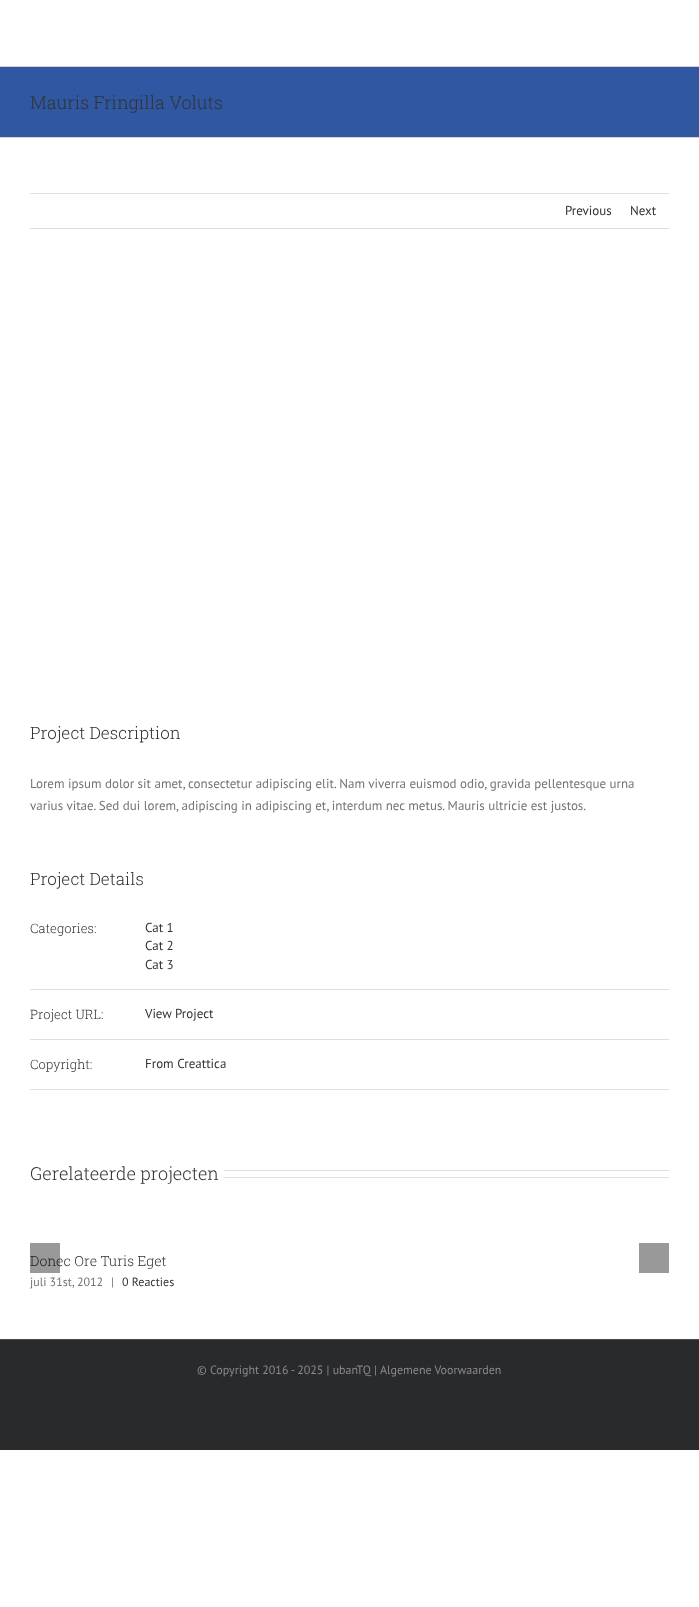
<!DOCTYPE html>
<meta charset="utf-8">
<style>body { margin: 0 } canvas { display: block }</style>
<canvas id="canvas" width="699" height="1607"></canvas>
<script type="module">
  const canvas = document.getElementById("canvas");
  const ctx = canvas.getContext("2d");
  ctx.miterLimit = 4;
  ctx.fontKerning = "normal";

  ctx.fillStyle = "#ffffff";
  ctx.fillRect(0, 0, 699, 1607);
  ctx.fillStyle = "#3057a2";
  ctx.fillRect(0, 67, 699, 70);
  ctx.fillStyle = "#d2d3d4";
  ctx.fillRect(0, 66, 699, 1);
  ctx.fillRect(0, 137, 699, 1);
  ctx.font = "300 18px Roboto Slab";
  ctx.fillStyle = "#333333";
  ctx.fillText("Mauris Fringilla Voluts", 30, 109);
  ctx.fillStyle = "#e0dede";
  ctx.fillRect(30, 193, 639, 1);
  ctx.fillRect(30, 228, 639, 1);
  ctx.font = "13px PT Sans";
  ctx.fillStyle = "#333333";
  ctx.fillText("Previous", 565, 215);
  ctx.fillText("Next", 630, 215);
  ctx.font = "300 17px Roboto Slab";
  ctx.fillText("Project Description", 30, 739);
  ctx.font = "13px PT Sans";
  ctx.fillStyle = "#747474";
  ctx.fillText("Lorem ipsum dolor sit amet, consectetur adipiscing elit. Nam viverra euismod odio, gravida pellentesque urna", 30, 788);
  ctx.fillText("varius vitae. Sed dui lorem, adipiscing in adipiscing et, interdum nec metus. Mauris ultricie est justos.", 30, 810);
  ctx.font = "300 17px Roboto Slab";
  ctx.fillStyle = "#333333";
  ctx.fillText("Project Details", 30, 885);
  ctx.fillStyle = "#e0dede";
  ctx.fillRect(30, 989, 639, 1);
  ctx.font = "300 13px Roboto Slab";
  ctx.fillStyle = "#333333";
  ctx.fillText("Categories:", 30, 933);
  ctx.font = "13px PT Sans";
  ctx.fillText("Cat 1", 145, 932);
  ctx.fillText("Cat 2", 145, 950);
  ctx.fillText("Cat 3", 145, 969);
  ctx.fillStyle = "#e0dede";
  ctx.fillRect(30, 1039, 639, 1);
  ctx.font = "300 13px Roboto Slab";
  ctx.fillStyle = "#333333";
  ctx.fillText("Project URL:", 30, 1019);
  ctx.font = "13px PT Sans";
  ctx.fillText("View Project", 145, 1018);
  ctx.fillStyle = "#e0dede";
  ctx.fillRect(30, 1089, 639, 1);
  ctx.font = "300 13px Roboto Slab";
  ctx.fillStyle = "#333333";
  ctx.fillText("Copyright:", 30, 1069);
  ctx.font = "13px PT Sans";
  ctx.fillText("From Creattica", 145, 1068);
  ctx.font = "300 18px Roboto Slab";
  ctx.fillText("Gerelateerde projecten", 30, 1180);
  ctx.fillStyle = "#e0dede";
  ctx.fillRect(224, 1170, 445, 1);
  ctx.fillRect(224, 1177, 445, 1);
  ctx.font = "300 14px Roboto Slab";
  ctx.fillStyle = "#333333";
  ctx.fillText("Donec Ore Turis Eget", 30, 1266);
  ctx.fillStyle = "rgba(0, 0, 0, 0.4)";
  ctx.fillRect(30, 1243, 30, 30);
  ctx.fillStyle = "#999999";
  ctx.fillRect(639, 1243, 30, 30);
  ctx.font = "12px PT Sans";
  ctx.fillStyle = "#747474";
  ctx.fillText("juli 31st, 2012", 30, 1286);
  ctx.fillText("|", 111, 1286);
  ctx.fillStyle = "#333333";
  ctx.fillText("0 Reacties", 122, 1286);
  ctx.fillStyle = "#282a2b";
  ctx.fillRect(0, 1340, 699, 110);
  ctx.fillStyle = "#4b4c4d";
  ctx.fillRect(0, 1339, 699, 1);
  ctx.fillStyle = "#8c8989";
  ctx.fillText("© Copyright 2016 - 2025 | ubanTQ |", 197, 1374);
  ctx.fillText("Algemene Voorwaarden", 380, 1374);
</script>
